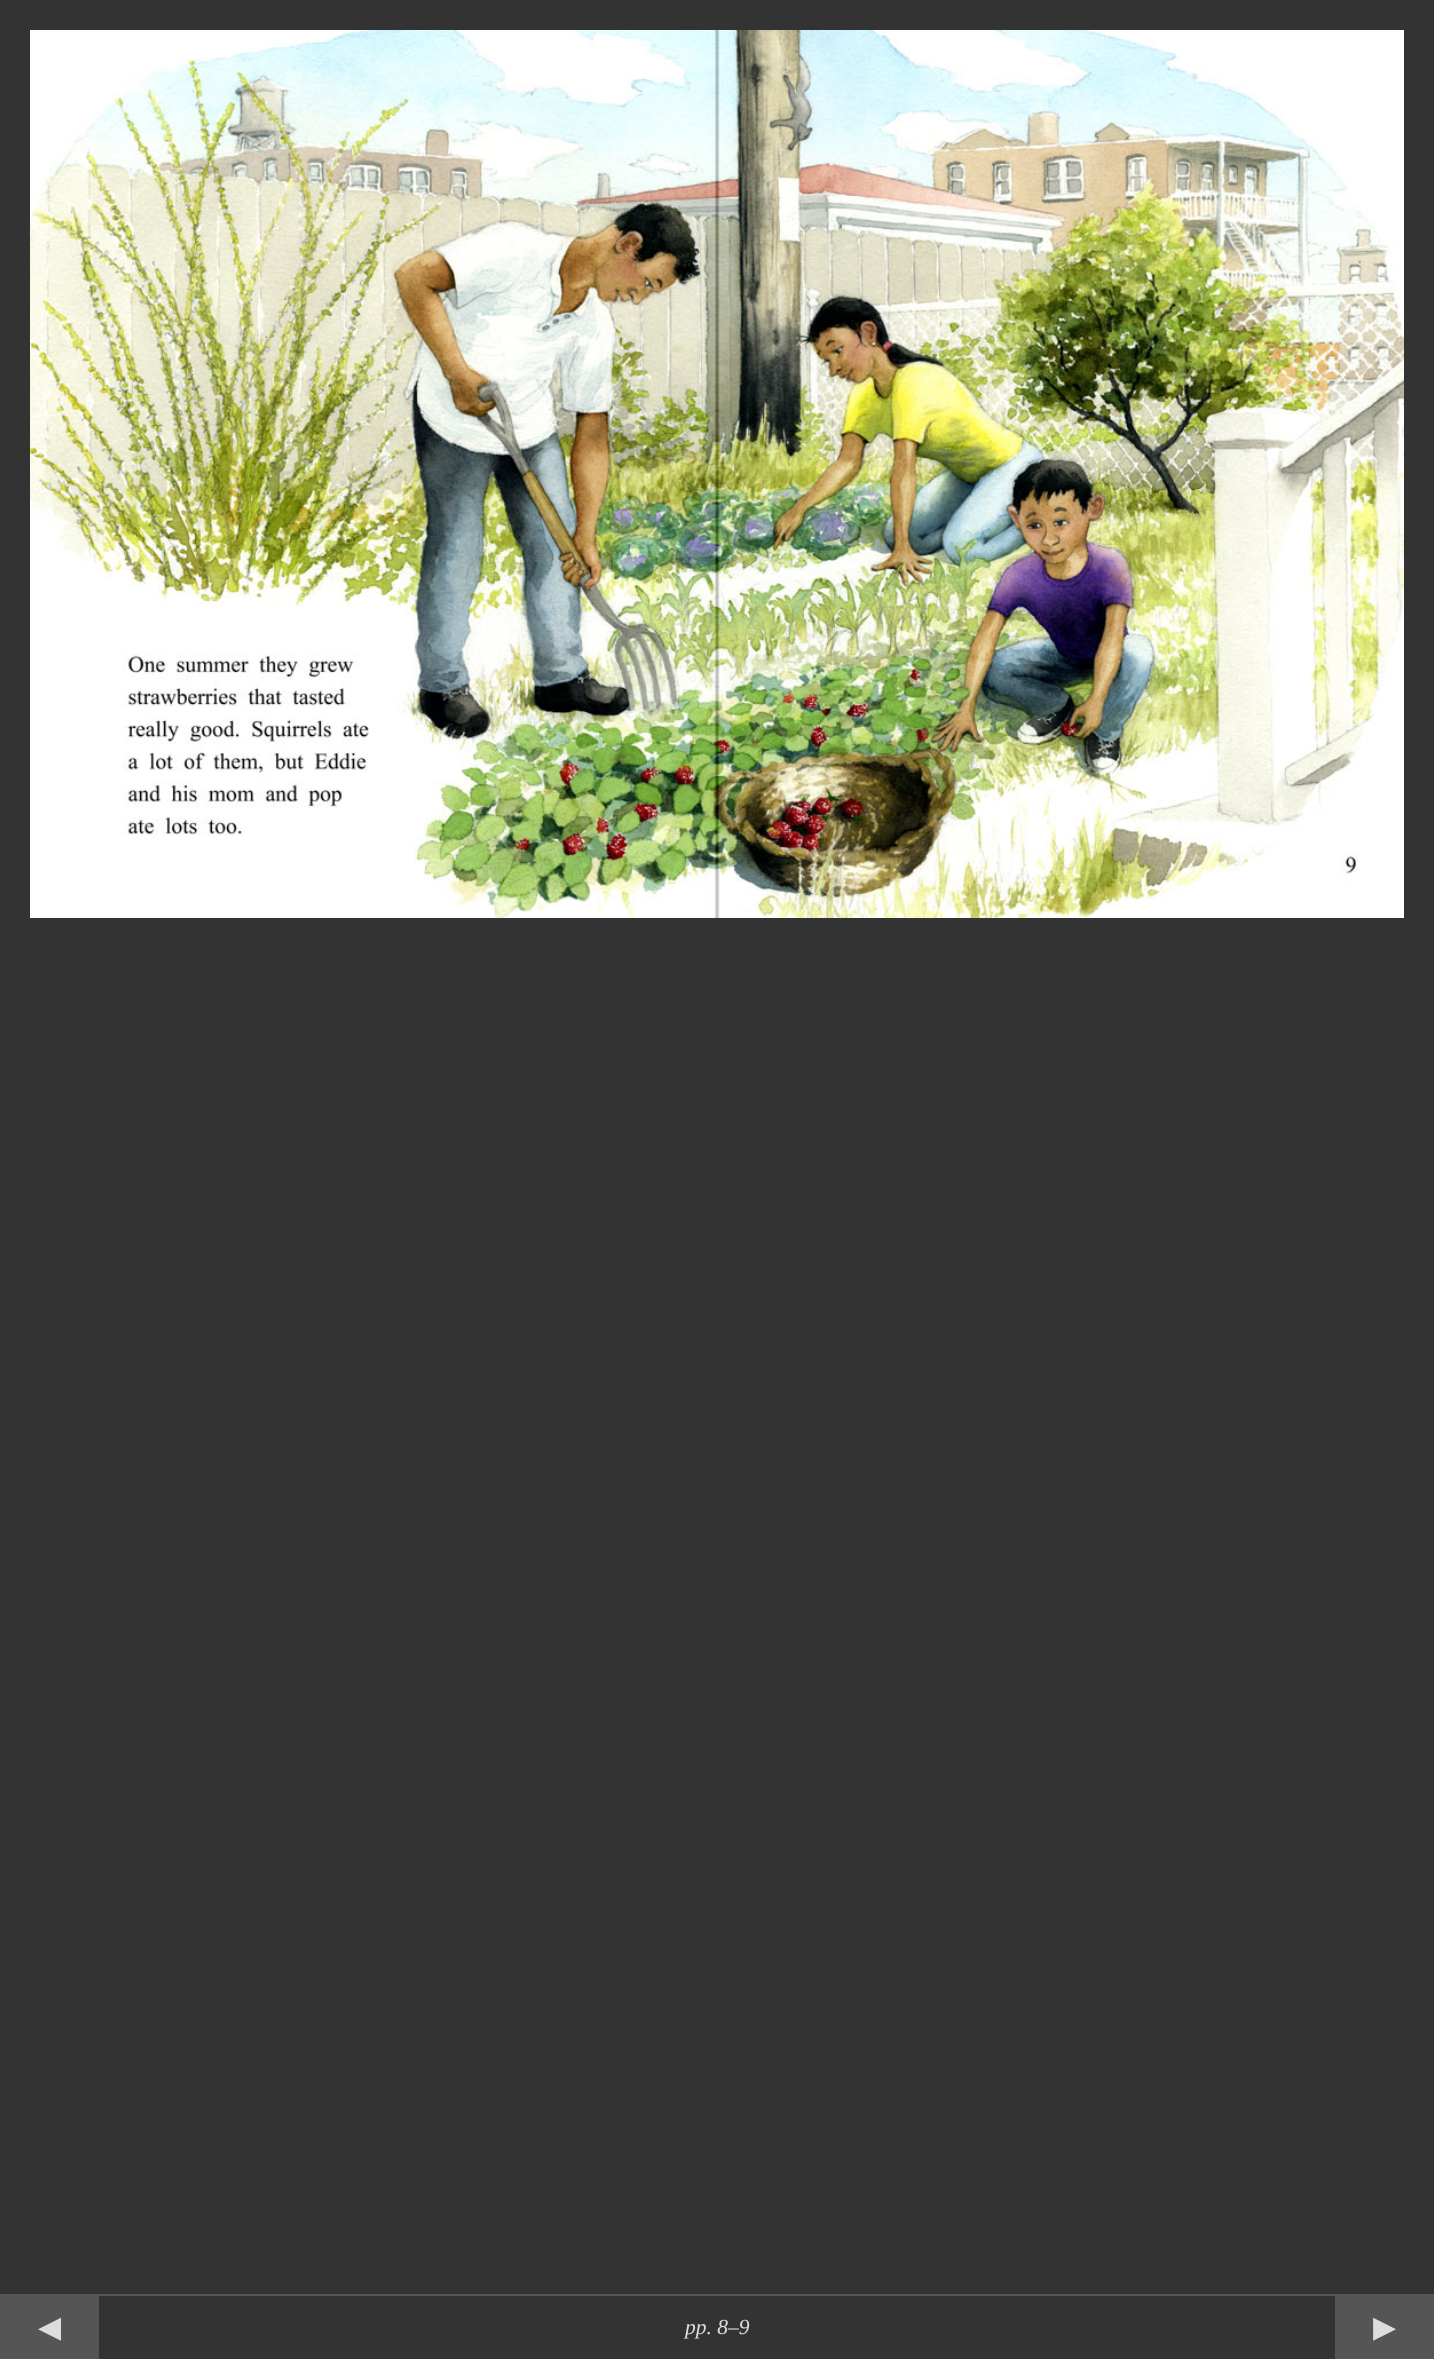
<!DOCTYPE html>
<meta charset="utf-8">
<style>body { margin: 0 } canvas { display: block }</style>
<canvas id="canvas" width="1434" height="2359"></canvas>
<script type="module">
  const canvas = document.getElementById("canvas");
  const ctx = canvas.getContext("2d");
  ctx.miterLimit = 4;
  ctx.fontKerning = "none";
  async function loadImage(src) {
    const img = new Image();
    img.src = src;
    await img.decode();
    return img;
  }

  ctx.fillStyle = "#333333";
  ctx.fillRect(0, 0, 1434, 2359);
  ctx.drawImage(await loadImage("img1.png"), 30, 30, 1374, 888);
  ctx.fillStyle = "#555555";
  ctx.fillRect(0, 2294, 1434, 2);
  ctx.fillRect(0, 2296, 99, 63);
  ctx.font = "30px DejaVu Sans";
  ctx.fillStyle = "#dddddd";
  ctx.fillText("◀︎", 38, 2337);
  ctx.font = "italic 21.5px Liberation Serif";
  ctx.fillText("pp. 8–9", 685, 2334);
  ctx.fillStyle = "#555555";
  ctx.fillRect(1335, 2296, 99, 63);
  ctx.font = "30px DejaVu Sans";
  ctx.fillStyle = "#dddddd";
  ctx.fillText("▶︎", 1373, 2337);
</script>
